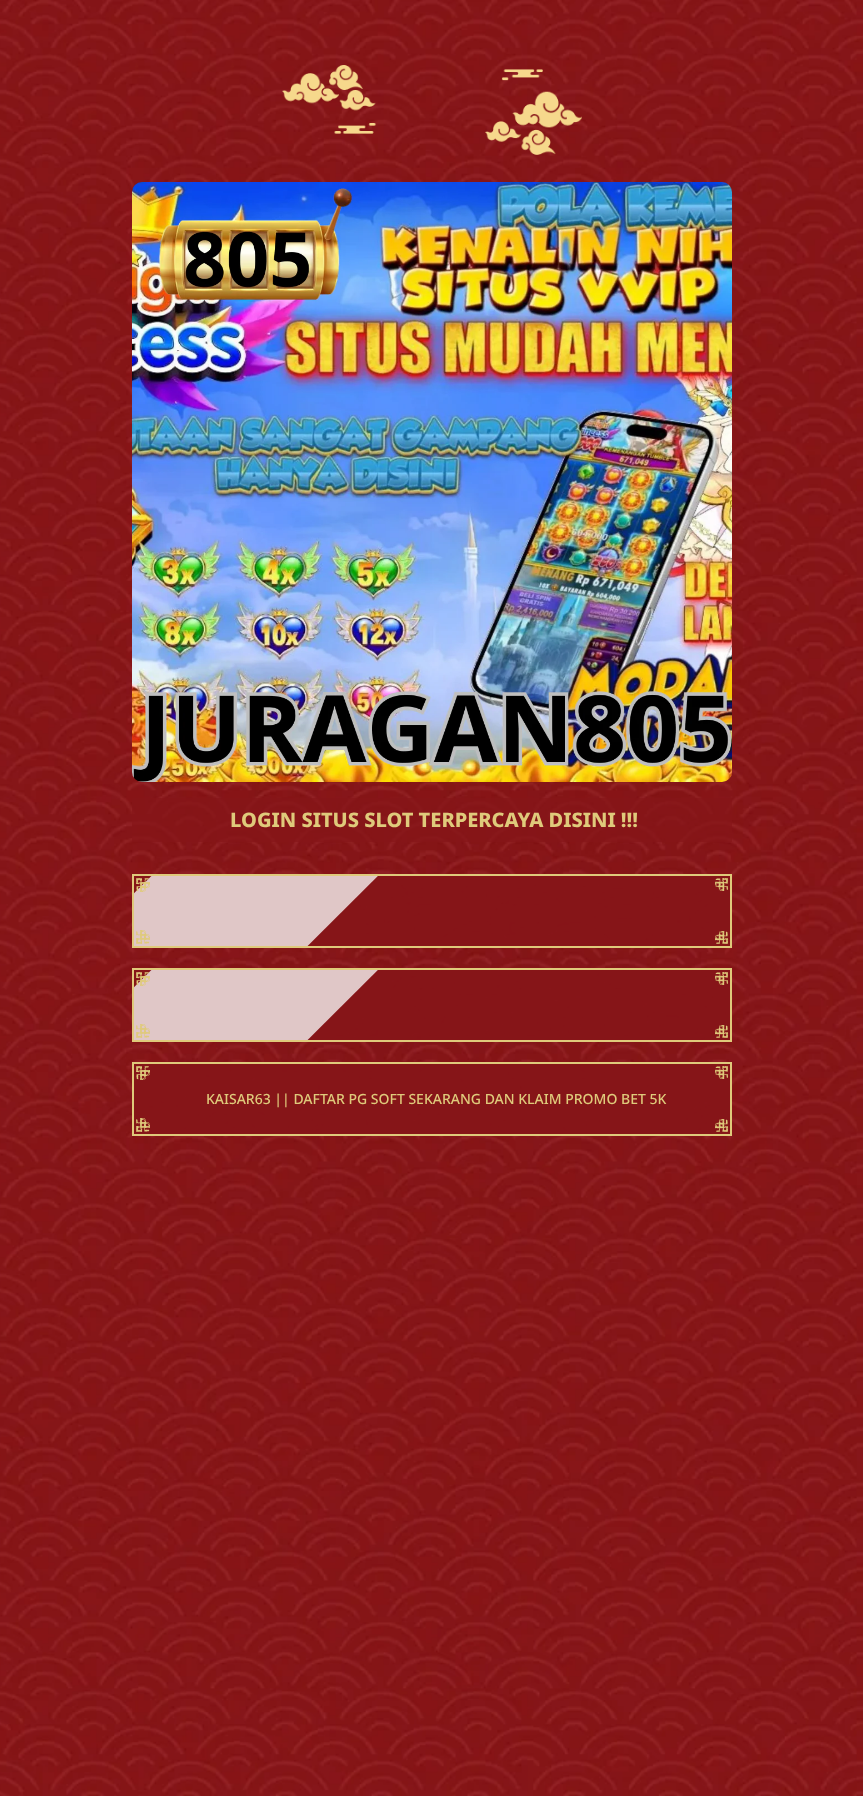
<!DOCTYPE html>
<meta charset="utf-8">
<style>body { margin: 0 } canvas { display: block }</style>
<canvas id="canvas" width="863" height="1796"></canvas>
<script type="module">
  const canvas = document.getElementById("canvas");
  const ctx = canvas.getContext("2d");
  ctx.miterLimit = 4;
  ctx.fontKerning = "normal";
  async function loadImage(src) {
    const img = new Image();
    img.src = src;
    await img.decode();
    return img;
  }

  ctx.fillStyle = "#ffffff";
  ctx.fillRect(0, 0, 863, 1796);
  ctx.drawImage(await loadImage("img1.png"), 0, 0, 863, 1796);
  ctx.drawImage(await loadImage("img2.png"), 132, 182, 600, 600);
  ctx.fillStyle = "rgba(134, 21, 24, 0.7)";
  ctx.fillRect(132, 798, 600, 44);
  ctx.font = "800 20px Noto Sans";
  ctx.fillStyle = "#dfca7b";
  ctx.fillText("LOGIN SITUS SLOT TERPERCAYA DISINI !!!", 230, 827);
  ctx.fillStyle = "rgba(134, 21, 24, 0.95)";
  ctx.beginPath();
  ctx.rect(133, 875, 598, 72);
  ctx.fill();
  ctx.strokeStyle = "#dfca7b";
  ctx.lineWidth = 2;
  ctx.stroke();
  ctx.save();
  ctx.beginPath();
  ctx.rect(134, 876, 596, 70);
  ctx.clip();
  ctx.fillStyle = "rgba(246, 244, 244, 0.8)";
  ctx.beginPath();
  ctx.moveTo(297, 731);
  ctx.lineTo(410, 844);
  ctx.lineTo(162, 1091);
  ctx.lineTo(49, 978);
  ctx.closePath();
  ctx.fill();
  ctx.restore();
  ctx.drawImage(await loadImage("img3.png"), 136, 878, 593, 66);
  ctx.beginPath();
  ctx.rect(133, 969, 598, 72);
  ctx.fill();
  ctx.stroke();
  ctx.save();
  ctx.beginPath();
  ctx.rect(134, 970, 596, 70);
  ctx.clip();
  ctx.fillStyle = "rgba(246, 244, 244, 0.8)";
  ctx.beginPath();
  ctx.moveTo(297, 825);
  ctx.lineTo(410, 938);
  ctx.lineTo(162, 1185);
  ctx.lineTo(49, 1072);
  ctx.closePath();
  ctx.fill();
  ctx.restore();
  ctx.drawImage(await loadImage("img4.png"), 136, 972, 593, 66);
  ctx.beginPath();
  ctx.rect(133, 1063, 598, 72);
  ctx.fill();
  ctx.stroke();
  ctx.font = "500 14px Noto Sans";
  ctx.fillStyle = "#dfca7b";
  ctx.fillText("KAISAR63 || DAFTAR PG SOFT SEKARANG DAN KLAIM PROMO BET 5K", 206, 1104);
  ctx.drawImage(await loadImage("img5.png"), 136, 1066, 593, 66);
</script>
